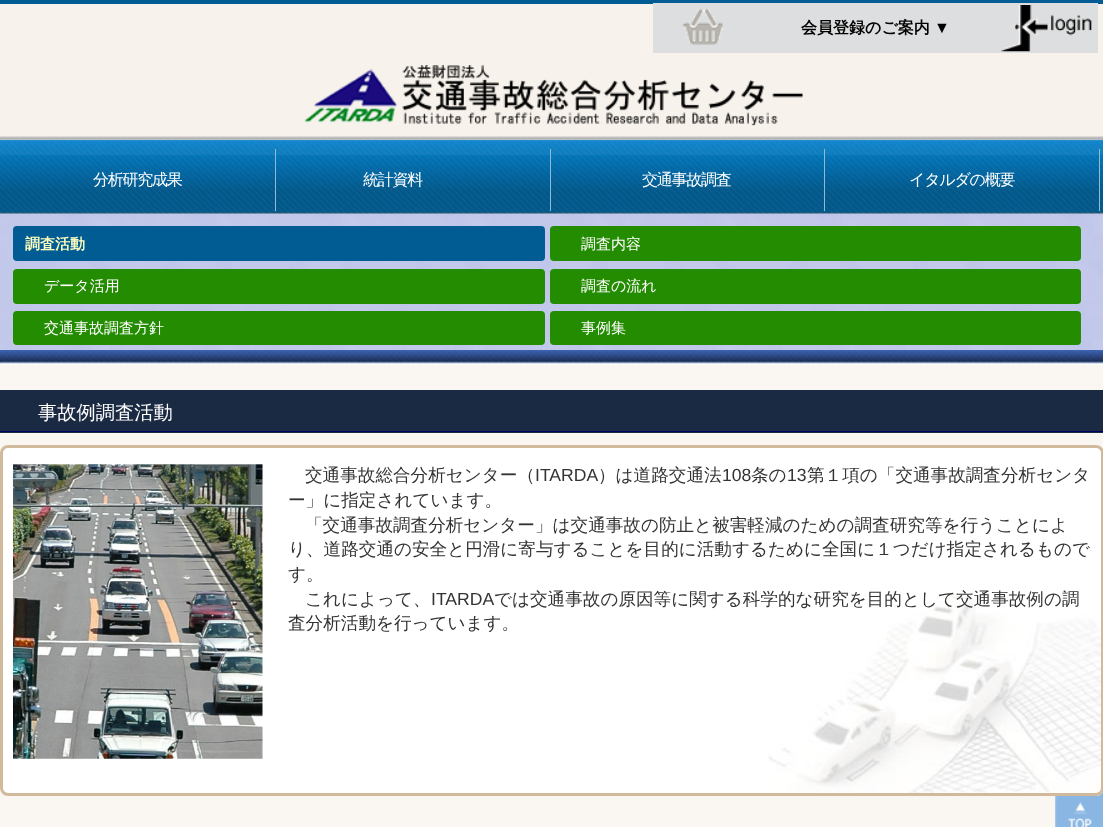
<!DOCTYPE html>
<meta charset="utf-8">
<style>body { margin: 0 } canvas { display: block }</style>
<canvas id="canvas" width="1103" height="827"></canvas>
<script type="module">
  const canvas = document.getElementById("canvas");
  const ctx = canvas.getContext("2d");
  ctx.miterLimit = 4;
  ctx.fontKerning = "normal";
  async function loadImage(src) {
    const img = new Image();
    img.src = src;
    await img.decode();
    return img;
  }

  ctx.fillStyle = "#faf7f3";
  ctx.fillRect(0, 0, 1103, 827);
  ctx.fillStyle = "#f7f2ec";
  ctx.fillRect(0, 4, 1103, 132);
  ctx.fillStyle = "#005c92";
  ctx.fillRect(0, 0, 1103, 4);
  ctx.fillStyle = "#dddedf";
  ctx.fillRect(653, 3, 445, 50);
  ctx.drawImage(await loadImage("img1.png"), 682, 8, 41, 37);
  ctx.font = "bold 16px WenQuanYi Zen Hei";
  ctx.fillStyle = "#000000";
  ctx.fillText("会員登録のご案内", 801, 33);
  ctx.font = "bold 16px Liberation Sans";
  ctx.fillText("▼", 934, 33);
  ctx.drawImage(await loadImage("img2.png"), 1001, 5, 91, 47);
  ctx.drawImage(await loadImage("img3.png"), 304, 65, 499, 61);
  ctx.drawImage(await loadImage("img4.png"), 0, 136, 1103, 78);
  ctx.fillStyle = "#8dbbd6";
  ctx.fillRect(275, 149, 1, 62);
  ctx.letterSpacing = "-1.25px";
  ctx.font = "500 16px WenQuanYi Zen Hei";
  ctx.fillStyle = "#ffffff";
  ctx.fillText("分析研究成果", 93, 185);
  ctx.fillStyle = "#8dbbd6";
  ctx.fillRect(550, 149, 1, 62);
  ctx.fillStyle = "#ffffff";
  ctx.fillText("統計資料", 363, 185);
  ctx.fillStyle = "#8dbbd6";
  ctx.fillRect(824, 149, 1, 62);
  ctx.fillStyle = "#ffffff";
  ctx.fillText("交通事故調査", 642, 185);
  ctx.fillStyle = "#8dbbd6";
  ctx.fillRect(1099, 149, 1, 62);
  ctx.fillStyle = "#ffffff";
  ctx.fillText("イタルダの概要", 909, 185);
  ctx.drawImage(await loadImage("img5.png"), 0, 213, 1103, 152);
  ctx.fillStyle = "#005c92";
  ctx.beginPath();
  ctx.roundRect(13, 226, 532, 35, 4);
  ctx.fill();
  ctx.letterSpacing = "0px";
  ctx.font = "bold 15px WenQuanYi Zen Hei";
  ctx.fillStyle = "#ffffbf";
  ctx.fillText("調査活動", 25, 249);
  ctx.fillStyle = "#238c00";
  ctx.beginPath();
  ctx.roundRect(550, 226, 531, 35, 4);
  ctx.fill();
  ctx.font = "500 15px WenQuanYi Zen Hei";
  ctx.fillStyle = "#ffffff";
  ctx.fillText("調査内容", 581, 249);
  ctx.fillStyle = "#238c00";
  ctx.beginPath();
  ctx.roundRect(13, 269, 532, 35, 4);
  ctx.fill();
  ctx.fillStyle = "#ffffff";
  ctx.fillText("データ活用", 44, 291);
  ctx.fillStyle = "#238c00";
  ctx.beginPath();
  ctx.roundRect(550, 269, 531, 35, 4);
  ctx.fill();
  ctx.fillStyle = "#ffffff";
  ctx.fillText("調査の流れ", 581, 291);
  ctx.fillStyle = "#238c00";
  ctx.beginPath();
  ctx.roundRect(13, 311, 532, 34, 4);
  ctx.fill();
  ctx.fillStyle = "#ffffff";
  ctx.fillText("交通事故調査方針", 44, 333);
  ctx.fillStyle = "#238c00";
  ctx.beginPath();
  ctx.roundRect(550, 311, 531, 34, 4);
  ctx.fill();
  ctx.fillStyle = "#ffffff";
  ctx.fillText("事例集", 581, 333);
  ctx.fillStyle = "#1b2a43";
  ctx.fillRect(0, 390, 1103, 43);
  ctx.fillStyle = "#000066";
  ctx.fillRect(0, 431, 1103, 1);
  ctx.font = "500 19.25px WenQuanYi Zen Hei";
  ctx.fillStyle = "#ffffff";
  ctx.fillText("事故例調査活動", 38, 419);
  ctx.drawImage(await loadImage("img8.png"), 1055, 791, 48, 36);
  ctx.beginPath();
  ctx.roundRect(0, 445, 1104, 351, 8);
  ctx.fill();
  ctx.drawImage(await loadImage("img6.png"), 768, 594, 334, 200);
  ctx.beginPath();
  ctx.roundRect(1.5, 446.5, 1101, 348, 6.5);
  ctx.strokeStyle = "#d1ba9b";
  ctx.lineWidth = 3;
  ctx.stroke();
  ctx.drawImage(await loadImage("img7.png"), 12, 463, 251, 296);
  ctx.font = "500 17.6px WenQuanYi Zen Hei";
  ctx.fillStyle = "#333333";
  ctx.fillText("交通事故総合分析センター（", 305, 481);
  ctx.font = "17.6px Liberation Sans";
  ctx.fillText("ITARDA", 535, 481);
  ctx.font = "500 17.6px WenQuanYi Zen Hei";
  ctx.fillText("）は道路交通法", 598, 481);
  ctx.font = "17.6px Liberation Sans";
  ctx.fillText("108", 722, 481);
  ctx.font = "500 17.6px WenQuanYi Zen Hei";
  ctx.fillText("条の", 751, 481);
  ctx.font = "17.6px Liberation Sans";
  ctx.fillText("13", 787, 481);
  ctx.font = "500 17.6px WenQuanYi Zen Hei";
  ctx.fillText("第１項の「交通事故調査分析センタ", 807, 481);
  ctx.fillText("ー」に指定されています。", 288, 506);
  ctx.fillText("「交通事故調査分析センター」は交通事故の防止と被害軽減のための調査研究等を行うことによ", 305, 531);
  ctx.fillText("り、道路交通の安全と円滑に寄与することを目的に活動するために全国に１つだけ指定されるもので", 288, 555);
  ctx.fillText("す。", 288, 580);
  ctx.fillText("これによって、", 305, 605);
  ctx.font = "17.6px Liberation Sans";
  ctx.fillText("ITARDA", 431, 605);
  ctx.font = "500 17.6px WenQuanYi Zen Hei";
  ctx.fillText("では交通事故の原因等に関する科学的な研究を目的として交通事故例の調", 494, 605);
  ctx.fillText("査分析活動を行っています。", 288, 629);
</script>
